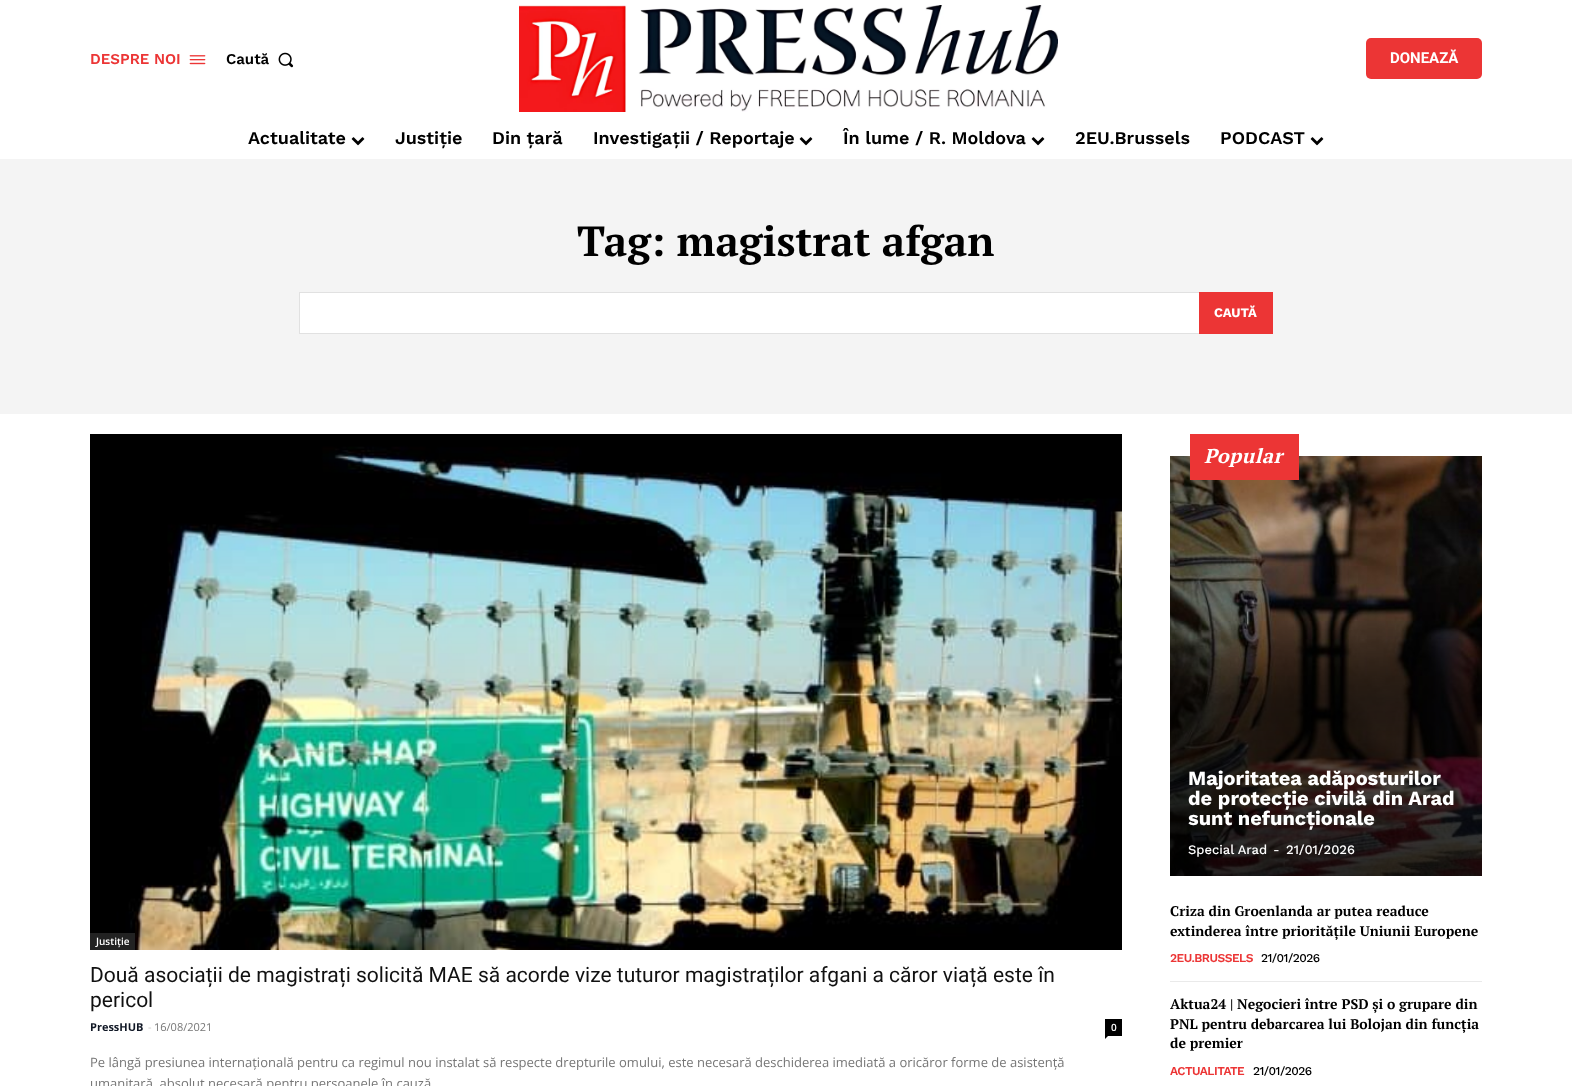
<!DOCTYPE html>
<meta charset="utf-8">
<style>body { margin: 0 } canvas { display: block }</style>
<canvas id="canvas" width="1572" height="1086"></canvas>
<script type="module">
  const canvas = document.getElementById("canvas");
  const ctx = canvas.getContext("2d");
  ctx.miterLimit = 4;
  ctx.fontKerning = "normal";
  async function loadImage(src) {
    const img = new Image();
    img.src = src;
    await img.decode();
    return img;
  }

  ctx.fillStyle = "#ffffff";
  ctx.fillRect(0, 0, 1572, 1086);
  ctx.font = "600 15px Work Sans";
  ctx.fillStyle = "#ec3535";
  ctx.fillText("DESPRE NOI", 90, 64);
  ctx.drawImage(await loadImage("img1.png"), 189, 55, 17, 10);
  ctx.fillStyle = "#000000";
  ctx.fillText("Caută", 226, 64);
  ctx.drawImage(await loadImage("img2.png"), 278, 52, 16, 16);
  ctx.drawImage(await loadImage("img3.png"), 519, 5, 539, 107);
  ctx.fillStyle = "#ec3535";
  ctx.beginPath();
  ctx.roundRect(1366, 38, 116, 41, 5);
  ctx.fill();
  ctx.font = "bold 15px Roboto";
  ctx.fillStyle = "#ffffff";
  ctx.fillText("DONEAZĂ", 1390, 63);
  ctx.font = "600 18px Work Sans";
  ctx.fillStyle = "#000000";
  ctx.fillText("Actualitate", 248, 144);
  ctx.drawImage(await loadImage("img4.png"), 351, 137, 14, 9);
  ctx.fillText("Justiție", 395, 144);
  ctx.fillText("Din țară", 492, 144);
  ctx.fillText("Investigații / Reportaje", 593, 144);
  ctx.drawImage(await loadImage("img4.png"), 799, 137, 14, 9);
  ctx.fillText("În lume / R. Moldova", 843, 144);
  ctx.drawImage(await loadImage("img4.png"), 1031, 137, 14, 9);
  ctx.fillText("2EU.Brussels", 1075, 144);
  ctx.fillText("PODCAST", 1220, 144);
  ctx.drawImage(await loadImage("img4.png"), 1310, 137, 14, 9);
  ctx.fillStyle = "#f4f4f4";
  ctx.fillRect(0, 159, 1572, 255);
  ctx.font = "bold 42px PT Serif";
  ctx.fillStyle = "#000000";
  ctx.fillText("Tag: magistrat afgan", 577, 256);
  ctx.fillStyle = "#ffffff";
  ctx.fillRect(300, 293, 899, 40);
  ctx.strokeStyle = "#e1e1e1";
  ctx.strokeRect(299.5, 292.5, 973, 41);
  ctx.fillStyle = "#ec3535";
  ctx.fillRect(1199, 292, 74, 42);
  ctx.font = "bold 13px Work Sans";
  ctx.fillStyle = "#ffffff";
  ctx.fillText("CAUTĂ", 1214, 317);
  ctx.drawImage(await loadImage("img5.png"), 90, 434, 1032, 516);
  ctx.fillStyle = "#222222";
  ctx.fillRect(90, 933, 45, 17);
  ctx.font = "600 10px Open Sans";
  ctx.fillStyle = "#ffffff";
  ctx.fillText("Justiție", 96, 945);
  ctx.font = "21px Roboto";
  ctx.fillStyle = "#111111";
  ctx.fillText("Două asociații de magistrați solicită MAE să acorde vize tuturor magistraților afgani a căror viață este în", 90, 982);
  ctx.fillText("pericol", 90, 1007);
  ctx.font = "bold 11px Open Sans";
  ctx.fillStyle = "#101725";
  ctx.fillText("PressHUB", 90, 1031);
  ctx.font = "11px Open Sans";
  ctx.fillStyle = "#cccccc";
  ctx.fillText("-", 148, 1031);
  ctx.fillStyle = "#767676";
  ctx.fillText("16/08/2021", 154, 1031);
  ctx.fillStyle = "#000000";
  ctx.fillRect(1105, 1019, 17, 17);
  ctx.font = "600 10px Open Sans";
  ctx.fillStyle = "#ffffff";
  ctx.fillText("0", 1111, 1031);
  ctx.fillStyle = "#000000";
  ctx.beginPath();
  ctx.moveTo(1105, 1036);
  ctx.lineTo(1108, 1036);
  ctx.lineTo(1105, 1039);
  ctx.closePath();
  ctx.fill();
  ctx.font = "13px Open Sans";
  ctx.fillStyle = "#767676";
  ctx.fillText("Pe lângă presiunea internațională pentru ca regimul nou instalat să respecte drepturile omului, este necesară deschiderea imediată a oricăror forme de asistență", 90, 1067);
  ctx.fillText("umanitară, absolut necesară pentru persoanele în cauză", 90, 1088);
  ctx.drawImage(await loadImage("img6.png"), 1170, 456, 312, 420);
  ctx.fillStyle = "#ec3535";
  ctx.fillRect(1190, 434, 109, 46);
  ctx.letterSpacing = "0.5px";
  ctx.font = "italic bold 20px PT Serif";
  ctx.fillStyle = "#ffffff";
  ctx.fillText("Popular", 1204, 463);
  ctx.letterSpacing = "0px";
  ctx.font = "bold 20px Work Sans";
  ctx.fillText("Majoritatea adăposturilor", 1188, 785);
  ctx.fillText("de protecție civilă din Arad", 1188, 805);
  ctx.fillText("sunt nefuncționale", 1188, 825);
  ctx.font = "500 13px Work Sans";
  ctx.fillText("Special Arad", 1188, 854);
  ctx.font = "13px Work Sans";
  ctx.fillText("-", 1273, 854);
  ctx.font = "500 13px Work Sans";
  ctx.fillText("21/01/2026", 1286, 854);
  ctx.fillStyle = "#eaeaea";
  ctx.fillRect(1170, 981, 312, 1);
  ctx.font = "bold 14px PT Serif";
  ctx.fillStyle = "#000000";
  ctx.fillText("Criza din Groenlanda ar putea readuce", 1170, 916);
  ctx.fillText("extinderea între prioritățile Uniunii Europene", 1170, 936);
  ctx.letterSpacing = "-0.5px";
  ctx.font = "600 12px Work Sans";
  ctx.fillStyle = "#ec3535";
  ctx.fillText("2EU.BRUSSELS", 1170, 962);
  ctx.font = "500 12px Work Sans";
  ctx.fillStyle = "#000000";
  ctx.fillText("21/01/2026", 1261, 962);
  ctx.letterSpacing = "0px";
  ctx.font = "bold 14px PT Serif";
  ctx.fillText("Aktua24 | Negocieri între PSD și o grupare din", 1170, 1009);
  ctx.fillText("PNL pentru debarcarea lui Bolojan din funcția", 1170, 1029);
  ctx.fillText("de premier", 1170, 1048);
  ctx.letterSpacing = "-0.5px";
  ctx.font = "600 12px Work Sans";
  ctx.fillStyle = "#ec3535";
  ctx.fillText("ACTUALITATE", 1170, 1075);
  ctx.font = "500 12px Work Sans";
  ctx.fillStyle = "#000000";
  ctx.fillText("21/01/2026", 1253, 1075);
</script>
